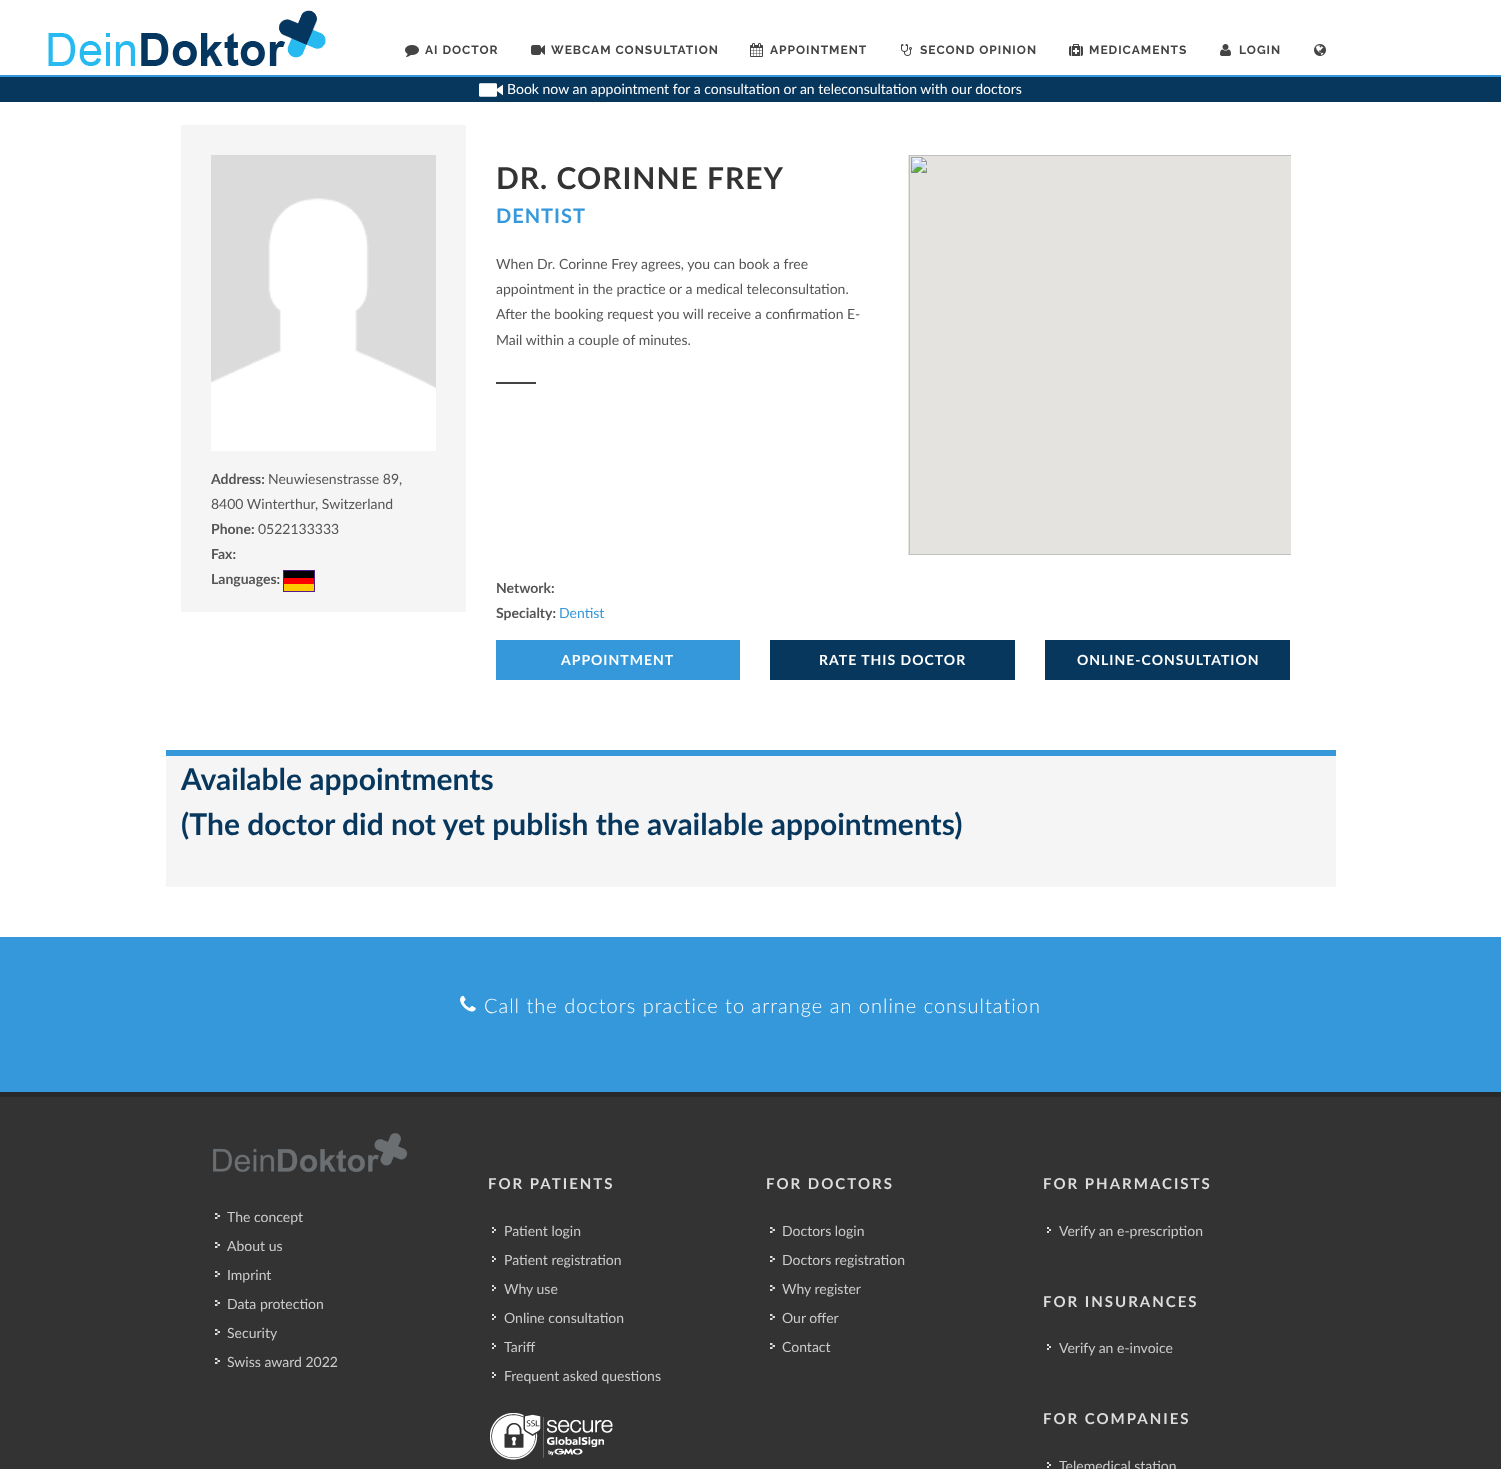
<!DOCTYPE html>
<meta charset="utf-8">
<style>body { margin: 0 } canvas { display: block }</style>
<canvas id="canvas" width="1501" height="1469"></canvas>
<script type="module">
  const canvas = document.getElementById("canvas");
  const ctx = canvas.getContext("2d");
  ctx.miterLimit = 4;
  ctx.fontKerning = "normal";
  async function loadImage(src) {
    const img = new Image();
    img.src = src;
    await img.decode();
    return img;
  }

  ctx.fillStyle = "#ffffff";
  ctx.fillRect(0, 0, 1501, 1469);
  ctx.drawImage(await loadImage("img1.png"), 48, 10, 278, 56);
  ctx.drawImage(await loadImage("img2.png"), 405, 45, 14, 12);
  ctx.letterSpacing = "1px";
  ctx.font = "bold 12px Raleway";
  ctx.fillStyle = "#444444";
  ctx.fillText("AI DOCTOR", 425, 54);
  ctx.drawImage(await loadImage("img3.png"), 531, 45, 14, 10);
  ctx.fillText("WEBCAM CONSULTATION", 551, 54);
  ctx.drawImage(await loadImage("img4.png"), 750, 43, 13, 14);
  ctx.fillText("APPOINTMENT", 770, 54);
  ctx.drawImage(await loadImage("img5.png"), 901, 44, 11, 12);
  ctx.fillText("SECOND OPINION", 920, 54);
  ctx.drawImage(await loadImage("img6.png"), 1069, 44, 14, 12);
  ctx.fillText("MEDICAMENTS", 1089, 54);
  ctx.drawImage(await loadImage("img7.png"), 1220, 44, 11, 12);
  ctx.fillText("LOGIN", 1239, 54);
  ctx.drawImage(await loadImage("img8.png"), 1314, 44, 12, 12);
  ctx.fillStyle = "#08375e";
  ctx.fillRect(0, 77, 1501, 25);
  ctx.fillStyle = "#3498db";
  ctx.fillRect(0, 75, 1501, 2);
  ctx.drawImage(await loadImage("img9.png"), 479, 83, 24, 14);
  ctx.letterSpacing = "0px";
  ctx.font = "14px Lato";
  ctx.fillStyle = "#ffffff";
  ctx.fillText("Book now an appointment for a consultation or an teleconsultation with our doctors", 507, 94);
  ctx.fillStyle = "#f5f5f5";
  ctx.fillRect(181, 125, 285, 487);
  ctx.drawImage(await loadImage("img10.png"), 211, 155, 225, 296);
  ctx.font = "bold 14px Lato";
  ctx.fillStyle = "#555555";
  ctx.fillText("Address:", 211, 484);
  ctx.font = "14px Lato";
  ctx.fillText("Neuwiesenstrasse 89,", 268, 484);
  ctx.fillText("8400 Winterthur, Switzerland", 211, 509);
  ctx.font = "bold 14px Lato";
  ctx.fillText("Phone:", 211, 534);
  ctx.font = "14px Lato";
  ctx.fillText("0522133333", 258, 534);
  ctx.font = "bold 14px Lato";
  ctx.fillText("Fax:", 211, 559);
  ctx.fillText("Languages:", 211, 584);
  ctx.drawImage(await loadImage("img11.png"), 283, 570, 33, 22);
  ctx.letterSpacing = "1px";
  ctx.font = "bold 30px Lato";
  ctx.fillStyle = "#333333";
  ctx.fillText("DR. CORINNE FREY", 496, 189);
  ctx.font = "bold 20px Lato";
  ctx.fillStyle = "#3498db";
  ctx.fillText("DENTIST", 496, 223);
  ctx.letterSpacing = "0px";
  ctx.font = "14px Lato";
  ctx.fillStyle = "#555555";
  ctx.fillText("When Dr. Corinne Frey agrees, you can book a free", 496, 269);
  ctx.fillText("appointment in the practice or a medical teleconsultation.", 496, 294);
  ctx.fillText("After the booking request you will receive a confirmation E-", 496, 319);
  ctx.fillText("Mail within a couple of minutes.", 496, 345);
  ctx.fillStyle = "#444444";
  ctx.fillRect(496, 382, 40, 2);
  ctx.drawImage(await loadImage("img12.png"), 908, 155, 383, 400);
  ctx.font = "bold 14px Lato";
  ctx.fillStyle = "#555555";
  ctx.fillText("Network:", 496, 593);
  ctx.fillText("Specialty:", 496, 618);
  ctx.font = "14px Lato";
  ctx.fillStyle = "#3498db";
  ctx.fillText("Dentist", 559, 618);
  ctx.fillRect(496, 640, 244, 40);
  ctx.letterSpacing = "1px";
  ctx.font = "bold 14px Lato";
  ctx.fillStyle = "#ffffff";
  ctx.fillText("APPOINTMENT", 561, 665);
  ctx.fillStyle = "#08375e";
  ctx.fillRect(770, 640, 245, 40);
  ctx.fillStyle = "#ffffff";
  ctx.fillText("RATE THIS DOCTOR", 819, 665);
  ctx.fillStyle = "#08375e";
  ctx.fillRect(1045, 640, 245, 40);
  ctx.fillStyle = "#ffffff";
  ctx.fillText("ONLINE-CONSULTATION", 1077, 665);
  ctx.fillStyle = "#f5f5f5";
  ctx.fillRect(166, 756, 1170, 131);
  ctx.fillStyle = "#3498db";
  ctx.fillRect(166, 750, 1170, 6);
  ctx.letterSpacing = "0px";
  ctx.font = "bold 30px Lato";
  ctx.fillStyle = "#08375e";
  ctx.fillText("Available appointments", 181, 790);
  ctx.fillText("(The doctor did not yet publish the available appointments)", 181, 835);
  ctx.fillStyle = "#3498db";
  ctx.fillRect(0, 937, 1501, 155);
  ctx.drawImage(await loadImage("img13.png"), 460, 995, 16, 17);
  ctx.letterSpacing = "1px";
  ctx.font = "300 20px Lato";
  ctx.fillStyle = "#ffffff";
  ctx.fillText("Call the doctors practice to arrange an online consultation", 484, 1013);
  ctx.fillStyle = "#333333";
  ctx.fillRect(0, 1097, 1501, 372);
  ctx.fillStyle = "#292929";
  ctx.fillRect(0, 1092, 1501, 5);
  ctx.drawImage(await loadImage("img14.png"), 213, 1133, 195, 39);
  ctx.drawImage(await loadImage("img15.png"), 215, 1213, 5, 6);
  ctx.letterSpacing = "0px";
  ctx.font = "14px Lato";
  ctx.fillStyle = "#cccccc";
  ctx.fillText("The concept", 227, 1222);
  ctx.drawImage(await loadImage("img15.png"), 215, 1242, 5, 6);
  ctx.fillText("About us", 227, 1251);
  ctx.drawImage(await loadImage("img15.png"), 215, 1271, 5, 6);
  ctx.fillText("Imprint", 227, 1280);
  ctx.drawImage(await loadImage("img15.png"), 215, 1300, 5, 6);
  ctx.fillText("Data protection", 227, 1309);
  ctx.drawImage(await loadImage("img15.png"), 215, 1329, 5, 6);
  ctx.fillText("Security", 227, 1338);
  ctx.drawImage(await loadImage("img15.png"), 215, 1358, 5, 6);
  ctx.fillText("Swiss award 2022", 227, 1367);
  ctx.letterSpacing = "2px";
  ctx.font = "bold 15px Lato";
  ctx.fillStyle = "#dddddd";
  ctx.fillText("FOR PATIENTS", 488, 1189);
  ctx.drawImage(await loadImage("img16.png"), 492, 1227, 4, 6);
  ctx.letterSpacing = "0px";
  ctx.font = "14px Lato";
  ctx.fillStyle = "#cccccc";
  ctx.fillText("Patient login", 504, 1236);
  ctx.drawImage(await loadImage("img16.png"), 492, 1256, 4, 6);
  ctx.fillText("Patient registration", 504, 1265);
  ctx.drawImage(await loadImage("img16.png"), 492, 1285, 4, 6);
  ctx.fillText("Why use", 504, 1294);
  ctx.drawImage(await loadImage("img16.png"), 492, 1314, 4, 6);
  ctx.fillText("Online consultation", 504, 1323);
  ctx.drawImage(await loadImage("img16.png"), 492, 1343, 4, 6);
  ctx.fillText("Tariff", 504, 1352);
  ctx.drawImage(await loadImage("img16.png"), 492, 1372, 4, 6);
  ctx.fillText("Frequent asked questions", 504, 1381);
  ctx.drawImage(await loadImage("img17.png"), 490, 1413, 123, 47);
  ctx.letterSpacing = "2px";
  ctx.font = "bold 15px Lato";
  ctx.fillStyle = "#dddddd";
  ctx.fillText("FOR DOCTORS", 766, 1189);
  ctx.drawImage(await loadImage("img15.png"), 770, 1227, 5, 6);
  ctx.letterSpacing = "0px";
  ctx.font = "14px Lato";
  ctx.fillStyle = "#cccccc";
  ctx.fillText("Doctors login", 782, 1236);
  ctx.drawImage(await loadImage("img15.png"), 770, 1256, 5, 6);
  ctx.fillText("Doctors registration", 782, 1265);
  ctx.drawImage(await loadImage("img15.png"), 770, 1285, 5, 6);
  ctx.fillText("Why register", 782, 1294);
  ctx.drawImage(await loadImage("img15.png"), 770, 1314, 5, 6);
  ctx.fillText("Our offer", 782, 1323);
  ctx.drawImage(await loadImage("img15.png"), 770, 1343, 5, 6);
  ctx.fillText("Contact", 782, 1352);
  ctx.letterSpacing = "2px";
  ctx.font = "bold 15px Lato";
  ctx.fillStyle = "#dddddd";
  ctx.fillText("FOR PHARMACISTS", 1043, 1189);
  ctx.drawImage(await loadImage("img16.png"), 1047, 1227, 4, 6);
  ctx.letterSpacing = "0px";
  ctx.font = "14px Lato";
  ctx.fillStyle = "#cccccc";
  ctx.fillText("Verify an e-prescription", 1059, 1236);
  ctx.letterSpacing = "2px";
  ctx.font = "bold 15px Lato";
  ctx.fillStyle = "#dddddd";
  ctx.fillText("FOR INSURANCES", 1043, 1307);
  ctx.drawImage(await loadImage("img16.png"), 1047, 1344, 4, 6);
  ctx.letterSpacing = "0px";
  ctx.font = "14px Lato";
  ctx.fillStyle = "#cccccc";
  ctx.fillText("Verify an e-invoice", 1059, 1353);
  ctx.letterSpacing = "2px";
  ctx.font = "bold 15px Lato";
  ctx.fillStyle = "#dddddd";
  ctx.fillText("FOR COMPANIES", 1043, 1424);
  ctx.drawImage(await loadImage("img16.png"), 1047, 1462, 4, 6);
  ctx.letterSpacing = "0px";
  ctx.font = "14px Lato";
  ctx.fillStyle = "#cccccc";
  ctx.fillText("Telemedical station", 1059, 1471);
</script>
